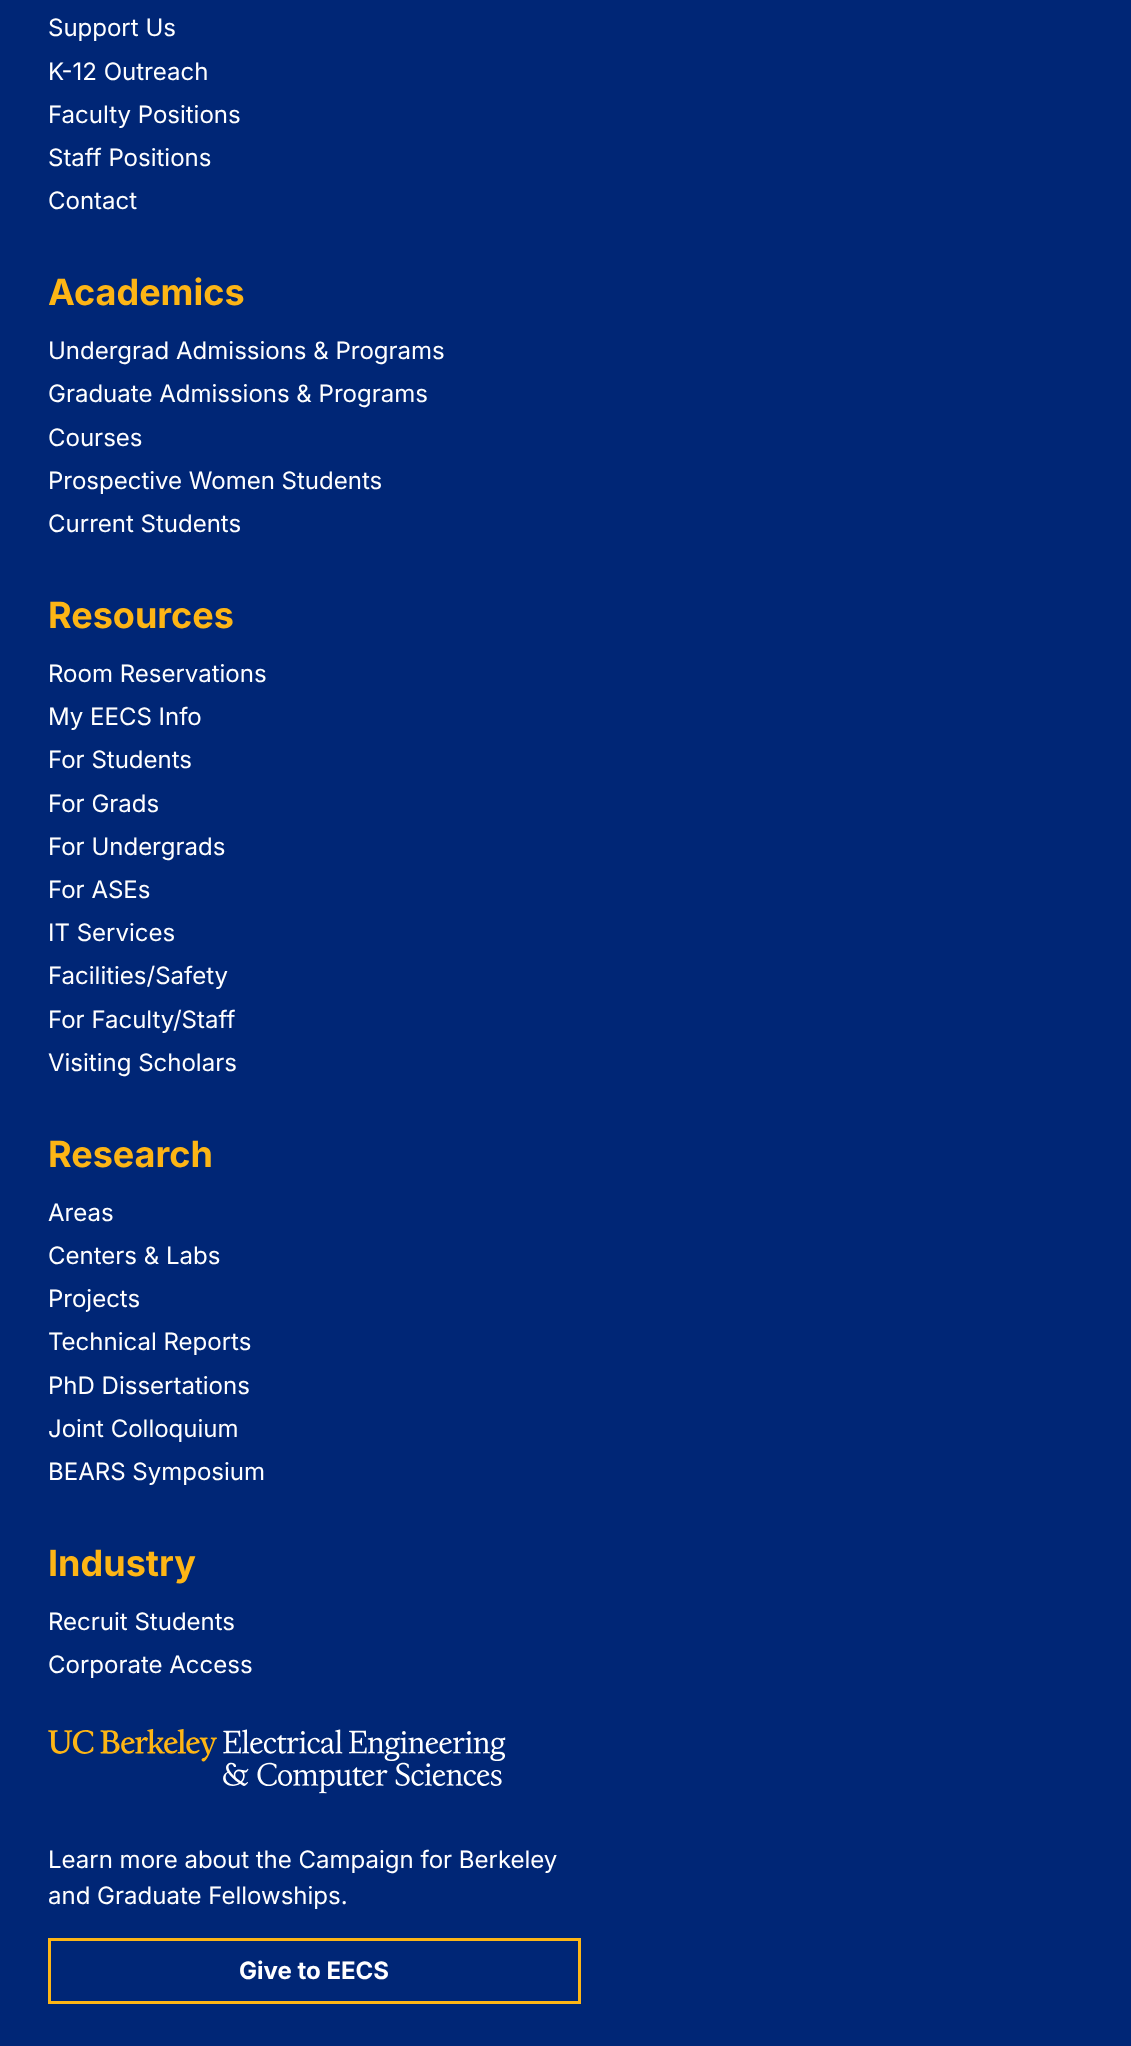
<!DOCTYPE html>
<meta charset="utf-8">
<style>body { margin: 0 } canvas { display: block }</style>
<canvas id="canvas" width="1131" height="2046"></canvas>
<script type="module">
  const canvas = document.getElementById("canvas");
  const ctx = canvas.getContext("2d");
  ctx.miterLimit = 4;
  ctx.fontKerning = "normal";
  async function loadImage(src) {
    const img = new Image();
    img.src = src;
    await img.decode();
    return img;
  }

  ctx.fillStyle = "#002676";
  ctx.fillRect(0, 0, 1131, 2046);
  ctx.font = "24px Inter";
  ctx.fillStyle = "#ffffff";
  ctx.fillText("Support Us", 48, 36);
  ctx.fillText("K-12 Outreach", 48, 80);
  ctx.fillText("Faculty Positions", 48, 123);
  ctx.fillText("Staff Positions", 48, 166);
  ctx.fillText("Contact", 48, 209);
  ctx.font = "bold 36px Inter";
  ctx.fillStyle = "#fdb515";
  ctx.fillText("Academics", 48, 305);
  ctx.font = "24px Inter";
  ctx.fillStyle = "#ffffff";
  ctx.fillText("Undergrad Admissions & Programs", 48, 359);
  ctx.fillText("Graduate Admissions & Programs", 48, 402);
  ctx.fillText("Courses", 48, 446);
  ctx.fillText("Prospective Women Students", 48, 489);
  ctx.fillText("Current Students", 48, 532);
  ctx.font = "bold 36px Inter";
  ctx.fillStyle = "#fdb515";
  ctx.fillText("Resources", 48, 628);
  ctx.font = "24px Inter";
  ctx.fillStyle = "#ffffff";
  ctx.fillText("Room Reservations", 48, 682);
  ctx.fillText("My EECS Info", 48, 725);
  ctx.fillText("For Students", 48, 768);
  ctx.fillText("For Grads", 48, 812);
  ctx.fillText("For Undergrads", 48, 855);
  ctx.fillText("For ASEs", 48, 898);
  ctx.fillText("IT Services", 48, 941);
  ctx.fillText("Facilities/Safety", 48, 984);
  ctx.fillText("For Faculty/Staff", 48, 1028);
  ctx.fillText("Visiting Scholars", 48, 1071);
  ctx.font = "bold 36px Inter";
  ctx.fillStyle = "#fdb515";
  ctx.fillText("Research", 48, 1167);
  ctx.font = "24px Inter";
  ctx.fillStyle = "#ffffff";
  ctx.fillText("Areas", 48, 1221);
  ctx.fillText("Centers & Labs", 48, 1264);
  ctx.fillText("Projects", 48, 1307);
  ctx.fillText("Technical Reports", 48, 1350);
  ctx.fillText("PhD Dissertations", 48, 1394);
  ctx.fillText("Joint Colloquium", 48, 1437);
  ctx.fillText("BEARS Symposium", 48, 1480);
  ctx.font = "bold 36px Inter";
  ctx.fillStyle = "#fdb515";
  ctx.fillText("Industry", 48, 1576);
  ctx.font = "24px Inter";
  ctx.fillStyle = "#ffffff";
  ctx.fillText("Recruit Students", 48, 1630);
  ctx.fillText("Corporate Access", 48, 1673);
  ctx.drawImage(await loadImage("img1.png"), 48, 1729, 458, 65);
  ctx.fillText("Learn more about the Campaign for Berkeley", 48, 1868);
  ctx.fillText("and Graduate Fellowships.", 48, 1904);
  ctx.strokeStyle = "#fdb515";
  ctx.lineWidth = 3;
  ctx.strokeRect(49.5, 1939.5, 530, 63);
  ctx.font = "bold 24px Inter";
  ctx.fillText("Give to EECS", 239, 1979);
</script>
